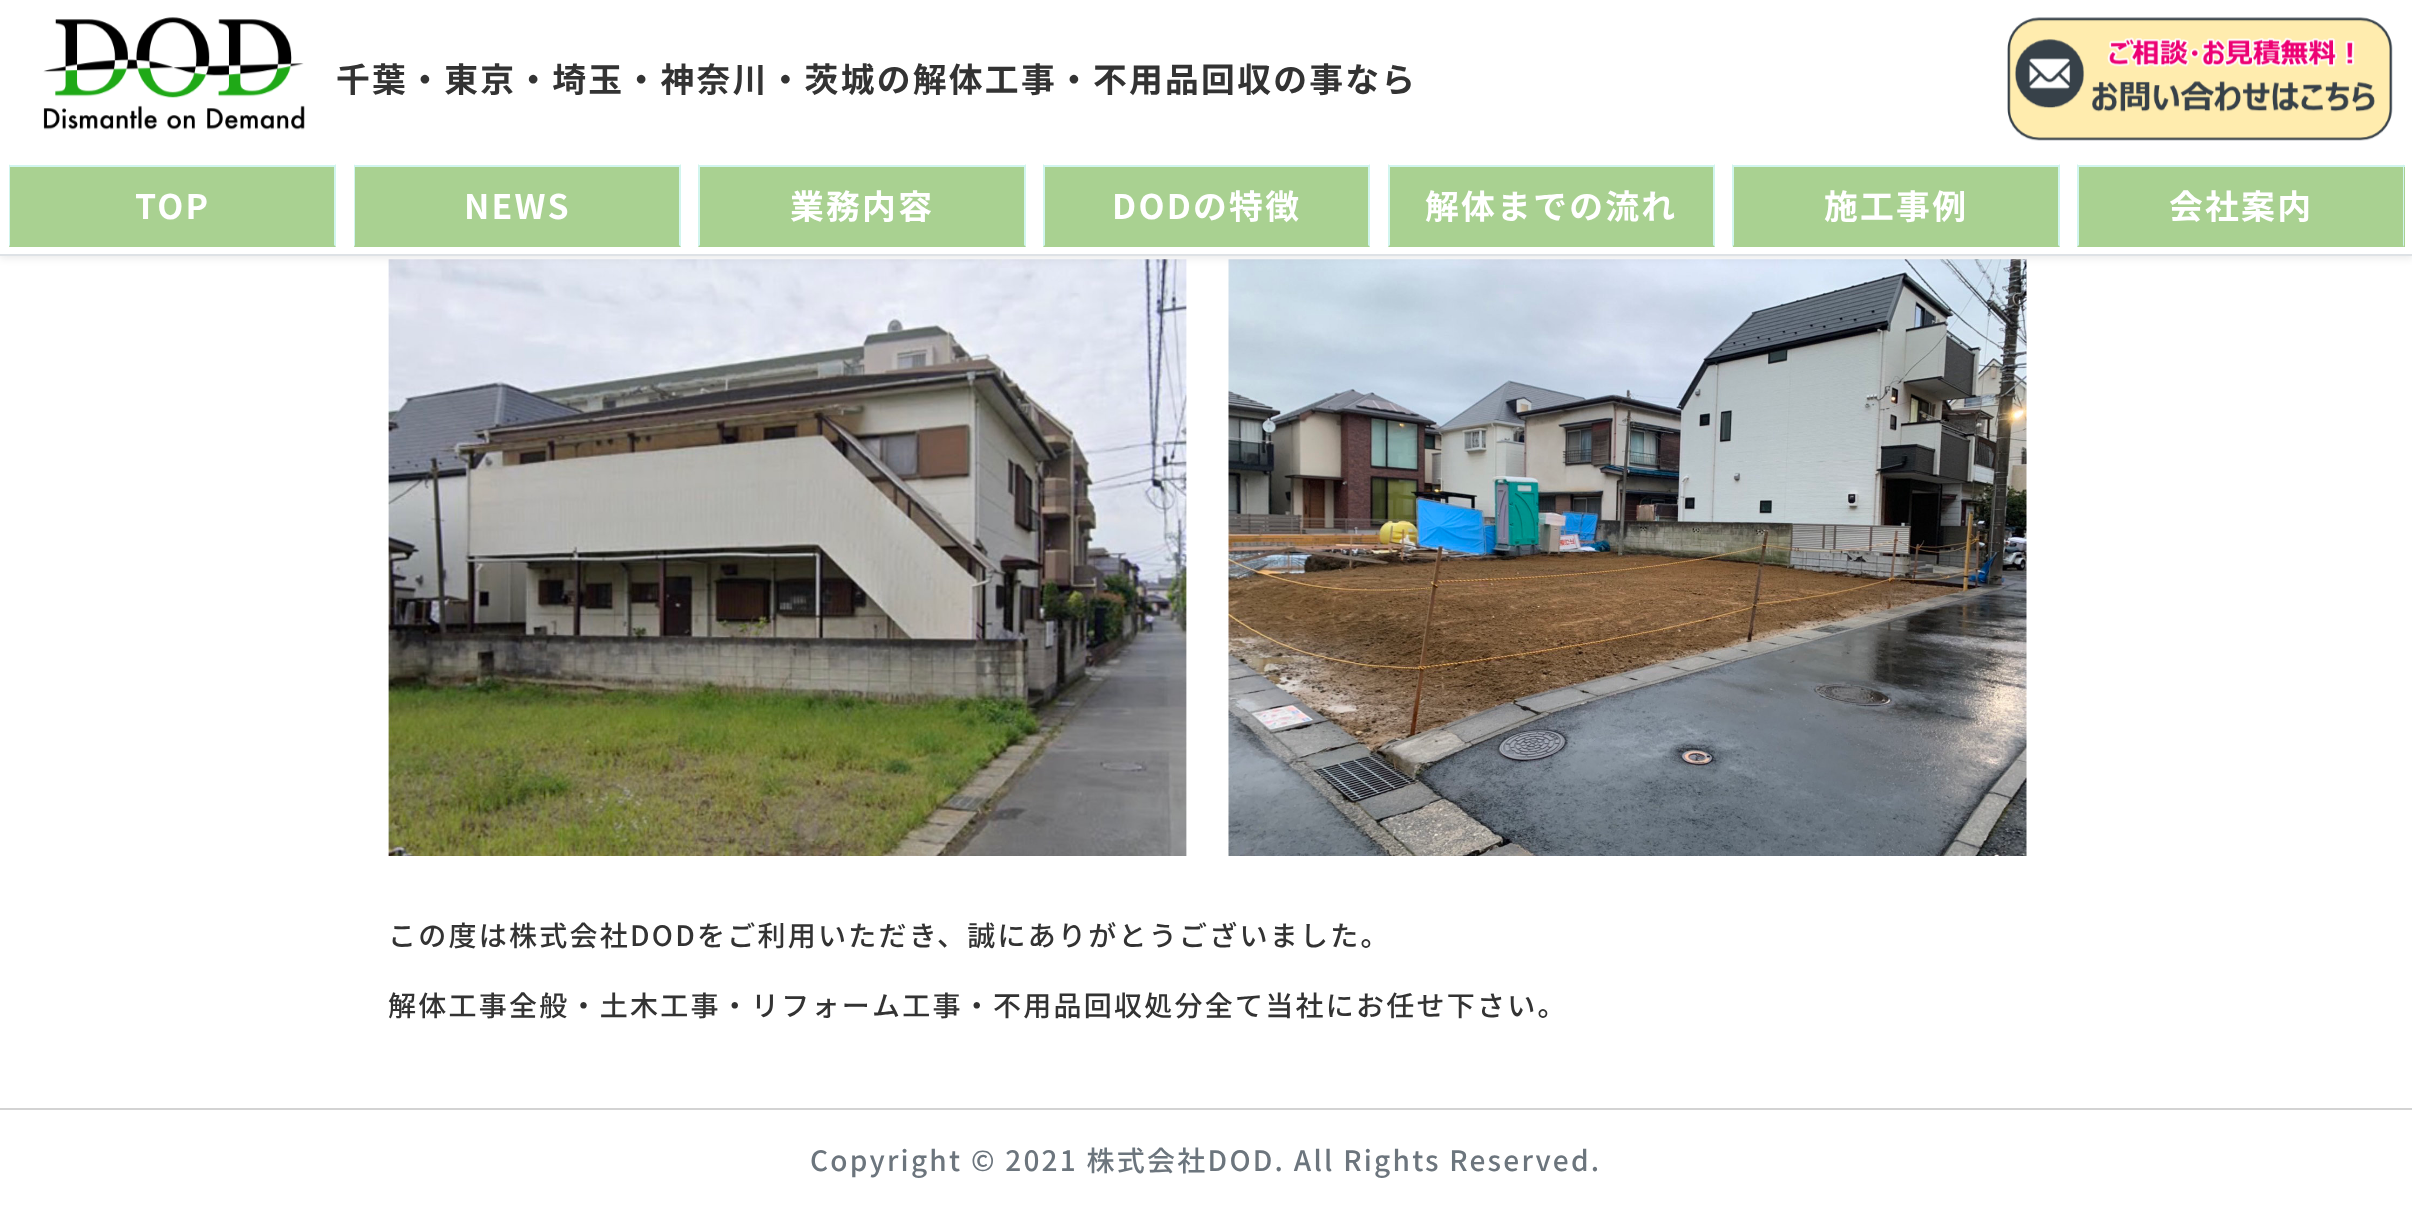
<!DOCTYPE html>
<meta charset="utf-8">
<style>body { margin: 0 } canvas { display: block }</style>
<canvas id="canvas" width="2412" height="1213"></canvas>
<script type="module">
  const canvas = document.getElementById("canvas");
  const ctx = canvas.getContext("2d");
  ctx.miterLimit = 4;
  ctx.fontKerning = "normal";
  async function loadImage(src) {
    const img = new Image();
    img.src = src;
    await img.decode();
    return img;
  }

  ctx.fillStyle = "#ffffff";
  ctx.fillRect(0, 0, 2412, 1213);
  ctx.drawImage(await loadImage("img3.png"), 388, 259, 799, 597);
  ctx.drawImage(await loadImage("img4.png"), 1228, 259, 799, 597);
  ctx.fillStyle = "rgba(0, 0, 0, 0.07)";
  ctx.filter = "blur(3.5px)";
  ctx.beginPath();
  ctx.rect(0, 4, 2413, 255);
  ctx.fill();
  ctx.filter = "none";
  ctx.fillStyle = "#ffffff";
  ctx.fillRect(0, 0, 2412, 254);
  ctx.fillStyle = "#dee2e6";
  ctx.fillRect(0, 254, 2412, 2);
  ctx.drawImage(await loadImage("img1.png"), 43, 17, 262, 113);
  ctx.letterSpacing = "2.25px";
  ctx.font = "bold 33.8px Noto Sans JP";
  ctx.fillStyle = "#333333";
  ctx.fillText("千葉・東京・埼玉・神奈川・茨城の解体工事・不用品回収の事なら", 336, 92);
  ctx.drawImage(await loadImage("img2.png"), 2007, 17, 386, 124);
  ctx.fillStyle = "#a9d191";
  ctx.fillRect(9, 167, 327, 80);
  ctx.fillStyle = "#d1f5ee";
  ctx.fillRect(9, 165, 327, 2);
  ctx.beginPath();
  ctx.moveTo(336, 164);
  ctx.lineTo(336, 247);
  ctx.lineTo(334, 245);
  ctx.lineTo(334, 166);
  ctx.closePath();
  ctx.fill();
  ctx.beginPath();
  ctx.moveTo(9, 247);
  ctx.lineTo(9, 164);
  ctx.lineTo(10, 166);
  ctx.lineTo(10, 245);
  ctx.closePath();
  ctx.fill();
  ctx.fillStyle = "#ffffff";
  ctx.fillText("TOP", 135, 219);
  ctx.fillStyle = "#a9d191";
  ctx.fillRect(354, 167, 327, 80);
  ctx.fillStyle = "#d1f5ee";
  ctx.fillRect(354, 165, 327, 2);
  ctx.beginPath();
  ctx.moveTo(681, 164);
  ctx.lineTo(681, 247);
  ctx.lineTo(679, 245);
  ctx.lineTo(679, 166);
  ctx.closePath();
  ctx.fill();
  ctx.beginPath();
  ctx.moveTo(354, 247);
  ctx.lineTo(354, 164);
  ctx.lineTo(355, 166);
  ctx.lineTo(355, 245);
  ctx.closePath();
  ctx.fill();
  ctx.fillStyle = "#ffffff";
  ctx.fillText("NEWS", 464, 219);
  ctx.fillStyle = "#a9d191";
  ctx.fillRect(698, 167, 328, 80);
  ctx.fillStyle = "#d1f5ee";
  ctx.fillRect(698, 165, 328, 2);
  ctx.beginPath();
  ctx.moveTo(1026, 164);
  ctx.lineTo(1026, 247);
  ctx.lineTo(1024, 245);
  ctx.lineTo(1024, 166);
  ctx.closePath();
  ctx.fill();
  ctx.beginPath();
  ctx.moveTo(698, 247);
  ctx.lineTo(698, 164);
  ctx.lineTo(700, 166);
  ctx.lineTo(700, 245);
  ctx.closePath();
  ctx.fill();
  ctx.fillStyle = "#ffffff";
  ctx.fillText("業務内容", 790, 219);
  ctx.fillStyle = "#a9d191";
  ctx.fillRect(1043, 167, 327, 80);
  ctx.fillStyle = "#d1f5ee";
  ctx.fillRect(1043, 165, 327, 2);
  ctx.beginPath();
  ctx.moveTo(1370, 164);
  ctx.lineTo(1370, 247);
  ctx.lineTo(1368, 245);
  ctx.lineTo(1368, 166);
  ctx.closePath();
  ctx.fill();
  ctx.beginPath();
  ctx.moveTo(1043, 247);
  ctx.lineTo(1043, 164);
  ctx.lineTo(1045, 166);
  ctx.lineTo(1045, 245);
  ctx.closePath();
  ctx.fill();
  ctx.fillStyle = "#ffffff";
  ctx.fillText("DODの特徴", 1112, 219);
  ctx.fillStyle = "#a9d191";
  ctx.fillRect(1388, 167, 327, 80);
  ctx.fillStyle = "#d1f5ee";
  ctx.fillRect(1388, 165, 327, 2);
  ctx.beginPath();
  ctx.moveTo(1715, 164);
  ctx.lineTo(1715, 247);
  ctx.lineTo(1713, 245);
  ctx.lineTo(1713, 166);
  ctx.closePath();
  ctx.fill();
  ctx.beginPath();
  ctx.moveTo(1388, 247);
  ctx.lineTo(1388, 164);
  ctx.lineTo(1390, 166);
  ctx.lineTo(1390, 245);
  ctx.closePath();
  ctx.fill();
  ctx.fillStyle = "#ffffff";
  ctx.fillText("解体までの流れ", 1425, 219);
  ctx.fillStyle = "#a9d191";
  ctx.fillRect(1733, 167, 327, 80);
  ctx.fillStyle = "#d1f5ee";
  ctx.fillRect(1733, 165, 327, 2);
  ctx.beginPath();
  ctx.moveTo(2060, 164);
  ctx.lineTo(2060, 247);
  ctx.lineTo(2058, 245);
  ctx.lineTo(2058, 166);
  ctx.closePath();
  ctx.fill();
  ctx.beginPath();
  ctx.moveTo(1732, 247);
  ctx.lineTo(1732, 164);
  ctx.lineTo(1734, 166);
  ctx.lineTo(1734, 245);
  ctx.closePath();
  ctx.fill();
  ctx.fillStyle = "#ffffff";
  ctx.fillText("施工事例", 1824, 219);
  ctx.fillStyle = "#a9d191";
  ctx.fillRect(2077, 167, 328, 80);
  ctx.fillStyle = "#d1f5ee";
  ctx.fillRect(2077, 165, 328, 2);
  ctx.beginPath();
  ctx.moveTo(2404, 164);
  ctx.lineTo(2404, 247);
  ctx.lineTo(2403, 245);
  ctx.lineTo(2403, 166);
  ctx.closePath();
  ctx.fill();
  ctx.beginPath();
  ctx.moveTo(2077, 247);
  ctx.lineTo(2077, 164);
  ctx.lineTo(2079, 166);
  ctx.lineTo(2079, 245);
  ctx.closePath();
  ctx.fill();
  ctx.fillStyle = "#ffffff";
  ctx.fillText("会社案内", 2169, 219);
  ctx.font = "500 28px Noto Sans JP";
  ctx.fillStyle = "#333333";
  ctx.fillText("この度は株式会社DODをご利用いただき、誠にありがとうございました。", 388, 946);
  ctx.fillText("解体工事全般・土木工事・リフォーム工事・不用品回収処分全て当社にお任せ下さい。", 388, 1016);
  ctx.fillStyle = "#d3d3d3";
  ctx.fillRect(0, 1108, 2412, 2);
  ctx.fillStyle = "#6c757d";
  ctx.fillText("Copyright © 2021 株式会社DOD. All Rights Reserved.", 810, 1171);
</script>
